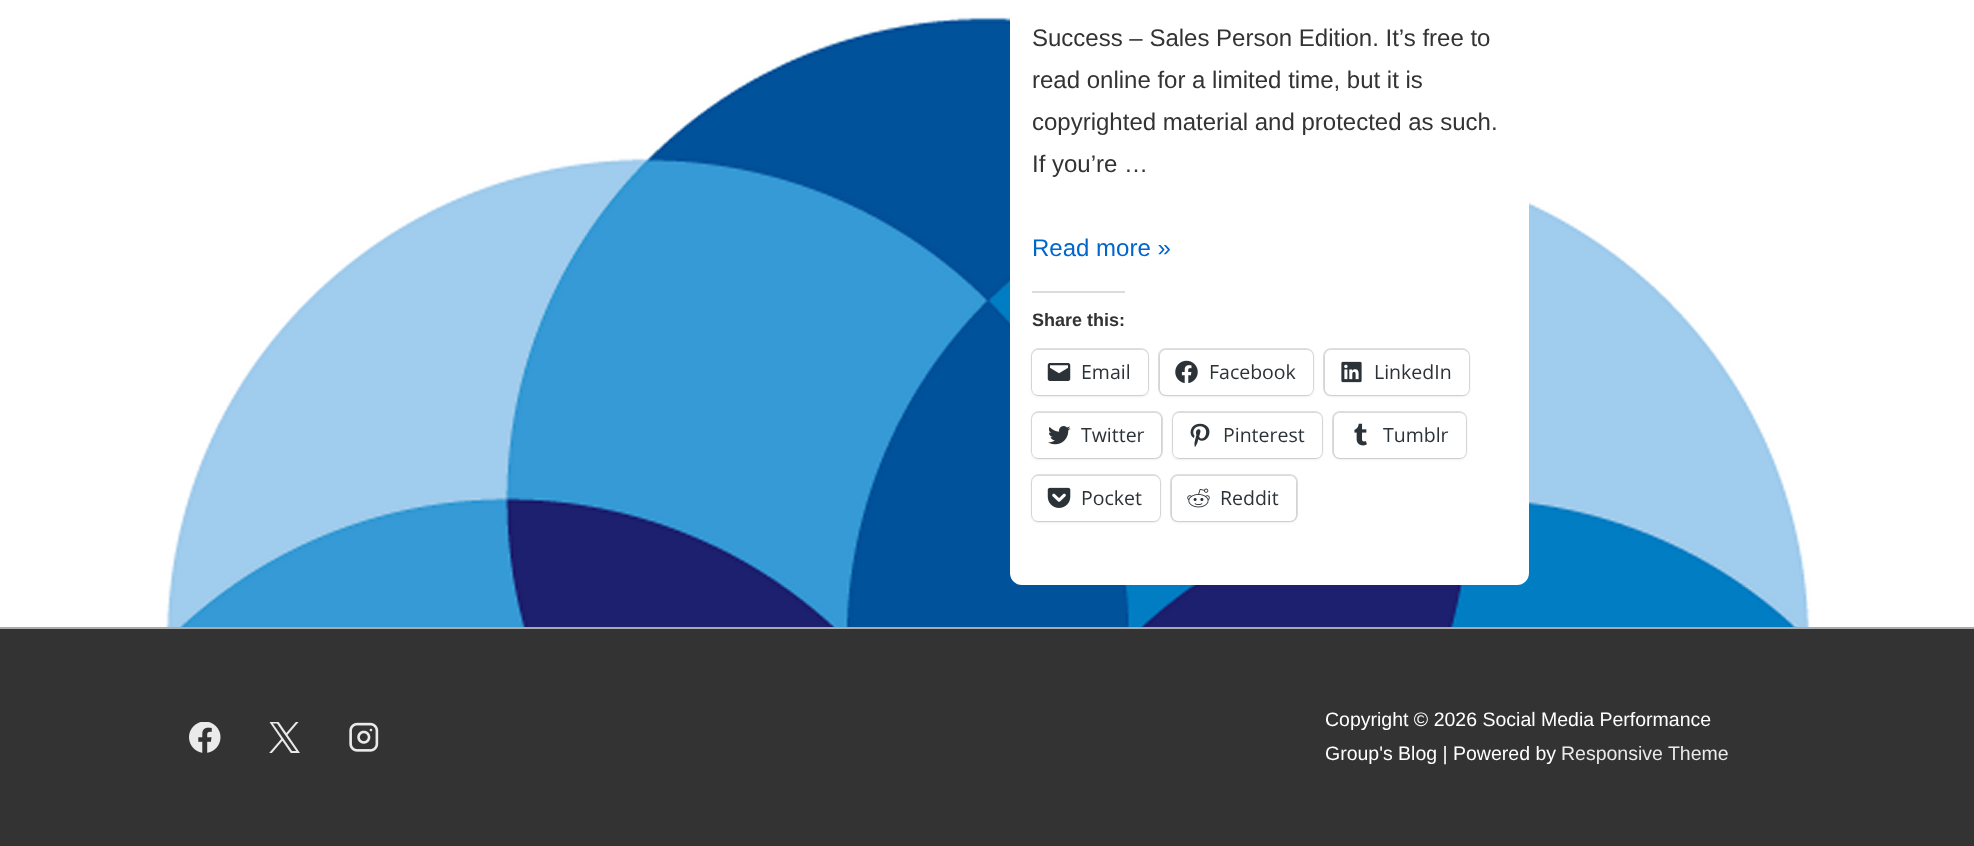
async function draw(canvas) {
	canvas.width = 1974;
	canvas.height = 846;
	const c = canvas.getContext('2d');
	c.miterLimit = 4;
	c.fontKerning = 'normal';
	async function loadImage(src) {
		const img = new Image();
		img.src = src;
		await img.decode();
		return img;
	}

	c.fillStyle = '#fff';
	c.fillRect(0, 0, 1974, 846);
	c.drawImage(await loadImage('img1.png'), 0, 0, 1974, 627);
	c.beginPath();
	c.roundRect(1010, -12, 519, 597, 12);
	c.fill();
	c.font = '24px Liberation Sans';
	c.fillStyle = '#333';
	for (const [text, x, y] of [
		['Success – Sales Person Edition. It’s free to', 1032, 46],
		['read online for a limited time, but it is', 1032, 88],
		['copyrighted material and protected as such.', 1032, 130],
		['If you’re …', 1032, 172],
	]) {
		c.fillText(text, x, y);
	}
	c.fillStyle = '#06c';
	c.fillText('Read more »', 1032, 256);
	c.fillStyle = '#dcdcde';
	c.fillRect(1032, 291, 93, 2);
	c.font = 'bold 18px Liberation Sans';
	c.fillStyle = '#333';
	c.fillText('Share this:', 1032, 326);
	c.beginPath();
	c.roundRect(1032, 349, 116, 46, 7);
	c.strokeStyle = '#e0e0e0';
	c.lineWidth = 2;
	c.stroke();
	c.fillStyle = '#0000001f';
	c.filter = 'blur(1.5px)';
	c.beginPath();
	c.roundRect(1032, 351, 116, 45, 6);
	c.fill();
	c.filter = 'none';
	c.fillStyle = '#fff';
	c.beginPath();
	c.roundRect(1032, 350, 116, 45, 6);
	c.fill();
	c.drawImage(await loadImage('img2.png'), 1047, 363, 24, 18);
	c.font = '19.5px Open Sans';
	c.fillStyle = '#2c3338';
	c.fillText('Email', 1081, 379);
	c.beginPath();
	c.roundRect(1159, 349, 154, 46, 7);
	c.stroke();
	c.fillStyle = '#0000001f';
	c.filter = 'blur(1.5px)';
	c.beginPath();
	c.roundRect(1160, 351, 153, 45, 6);
	c.fill();
	c.filter = 'none';
	c.fillStyle = '#fff';
	c.beginPath();
	c.roundRect(1160, 350, 153, 45, 6);
	c.fill();
	c.drawImage(await loadImage('img3.png'), 1175, 360, 23, 24);
	c.fillStyle = '#2c3338';
	c.fillText('Facebook', 1209, 379);
	c.beginPath();
	c.roundRect(1324, 349, 145, 46, 7);
	c.stroke();
	c.fillStyle = '#0000001f';
	c.filter = 'blur(1.5px)';
	c.beginPath();
	c.roundRect(1325, 351, 144, 45, 6);
	c.fill();
	c.filter = 'none';
	c.fillStyle = '#fff';
	c.beginPath();
	c.roundRect(1325, 350, 144, 45, 6);
	c.fill();
	c.drawImage(await loadImage('img4.png'), 1341, 361, 21, 22);
	c.fillStyle = '#2c3338';
	c.fillText('LinkedIn', 1374, 379);
	c.beginPath();
	c.roundRect(1032, 412, 130, 46, 7);
	c.stroke();
	c.fillStyle = '#0000001f';
	c.filter = 'blur(1.5px)';
	c.beginPath();
	c.roundRect(1032, 414, 129, 45, 6);
	c.fill();
	c.filter = 'none';
	c.fillStyle = '#fff';
	c.beginPath();
	c.roundRect(1032, 413, 129, 45, 6);
	c.fill();
	c.drawImage(await loadImage('img5.png'), 1048, 426, 23, 19);
	c.fillStyle = '#2c3338';
	c.fillText('Twitter', 1081, 442);
	c.beginPath();
	c.roundRect(1173, 412, 149, 46, 7);
	c.stroke();
	c.fillStyle = '#0000001f';
	c.filter = 'blur(1.5px)';
	c.beginPath();
	c.roundRect(1173, 414, 149, 45, 6);
	c.fill();
	c.filter = 'none';
	c.fillStyle = '#fff';
	c.beginPath();
	c.roundRect(1173, 413, 149, 45, 6);
	c.fill();
	c.drawImage(await loadImage('img6.png'), 1190, 423, 20, 24);
	c.fillStyle = '#2c3338';
	c.fillText('Pinterest', 1223, 442);
	c.beginPath();
	c.roundRect(1333, 412, 133, 46, 7);
	c.stroke();
	c.fillStyle = '#0000001f';
	c.filter = 'blur(1.5px)';
	c.beginPath();
	c.roundRect(1334, 414, 132, 45, 6);
	c.fill();
	c.filter = 'none';
	c.fillStyle = '#fff';
	c.beginPath();
	c.roundRect(1334, 413, 132, 45, 6);
	c.fill();
	c.drawImage(await loadImage('img7.png'), 1354, 423, 13, 23);
	c.fillStyle = '#2c3338';
	c.fillText('Tumblr', 1383, 442);
	c.beginPath();
	c.roundRect(1032, 475, 128, 46, 7);
	c.stroke();
	c.fillStyle = '#0000001f';
	c.filter = 'blur(1.5px)';
	c.beginPath();
	c.roundRect(1032, 477, 128, 45, 6);
	c.fill();
	c.filter = 'none';
	c.fillStyle = '#fff';
	c.beginPath();
	c.roundRect(1032, 476, 128, 45, 6);
	c.fill();
	c.drawImage(await loadImage('img8.png'), 1047, 487, 24, 21);
	c.fillStyle = '#2c3338';
	c.fillText('Pocket', 1081, 505);
	c.beginPath();
	c.roundRect(1171, 475, 126, 46, 7);
	c.stroke();
	c.fillStyle = '#0000001f';
	c.filter = 'blur(1.5px)';
	c.beginPath();
	c.roundRect(1172, 477, 124, 45, 6);
	c.fill();
	c.filter = 'none';
	c.fillStyle = '#fff';
	c.beginPath();
	c.roundRect(1172, 476, 124, 45, 6);
	c.fill();
	c.drawImage(await loadImage('img9.png'), 1187, 488, 23, 20);
	c.fillStyle = '#2c3338';
	c.fillText('Reddit', 1220, 505);
	c.fillStyle = '#333';
	c.fillRect(0, 629, 1974, 217);
	c.fillStyle = '#aaa';
	c.fillRect(0, 627, 1974, 2);
	c.drawImage(await loadImage('img10.png'), 189, 722, 32, 31);
	c.drawImage(await loadImage('img11.png'), 269, 722, 31, 31);
	c.drawImage(await loadImage('img12.png'), 349, 722, 30, 30);
	c.font = '19.5px Liberation Sans';
	c.fillStyle = '#fff';
	c.fillText('Copyright © 2026 Social Media Performance', 1325, 726);
	c.fillText('Group\'s Blog | Powered by', 1325, 760);
	c.fillStyle = '#eaeaea';
	c.fillText('Responsive Theme', 1561, 760);
}

draw(document.querySelector('canvas'));
